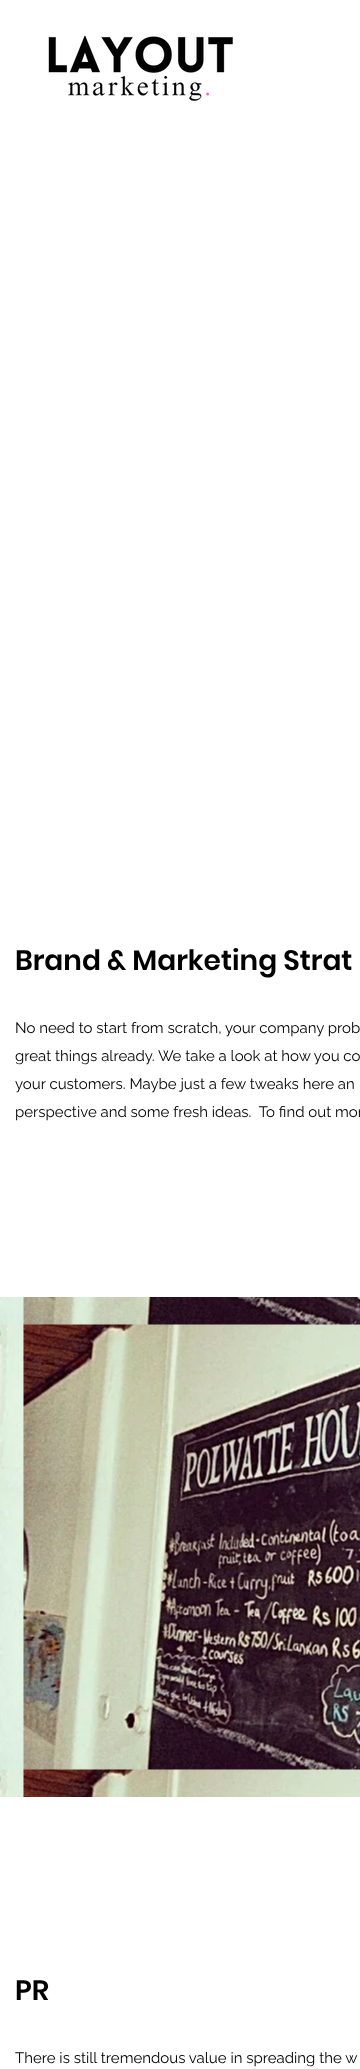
async function draw(canvas) {
	canvas.width = 360;
	canvas.height = 2069;
	const c = canvas.getContext('2d');
	c.miterLimit = 4;
	c.fontKerning = 'normal';
	async function loadImage(src) {
		const img = new Image();
		img.src = src;
		await img.decode();
		return img;
	}

	c.fillStyle = '#fff';
	c.fillRect(0, 0, 360, 2069);
	c.drawImage(await loadImage('img1.png'), 48, 35, 185, 66);
	c.font = '600 28px Poppins';
	c.fillStyle = '#000';
	c.fillText('Brand & Marketing Strat', 15, 970);
	c.font = '15px Raleway';
	for (const [text, x, y] of [
		['No need to start from scratch, your company prob', 15, 1033],
		['great things already. We take a look at how you co', 15, 1061],
		['your customers. Maybe just a few tweaks here an', 15, 1089],
		['perspective and some fresh ideas.  To find out mor', 15, 1117],
	]) {
		c.fillText(text, x, y);
	}
	c.drawImage(await loadImage('img2.png'), 0, 1297, 360, 500);
	c.font = '600 28px Poppins';
	c.fillText('PR', 15, 2000);
	c.font = '15px Raleway';
	c.fillText('There is still tremendous value in spreading the w', 15, 2063);
}

draw(document.querySelector('canvas'));
